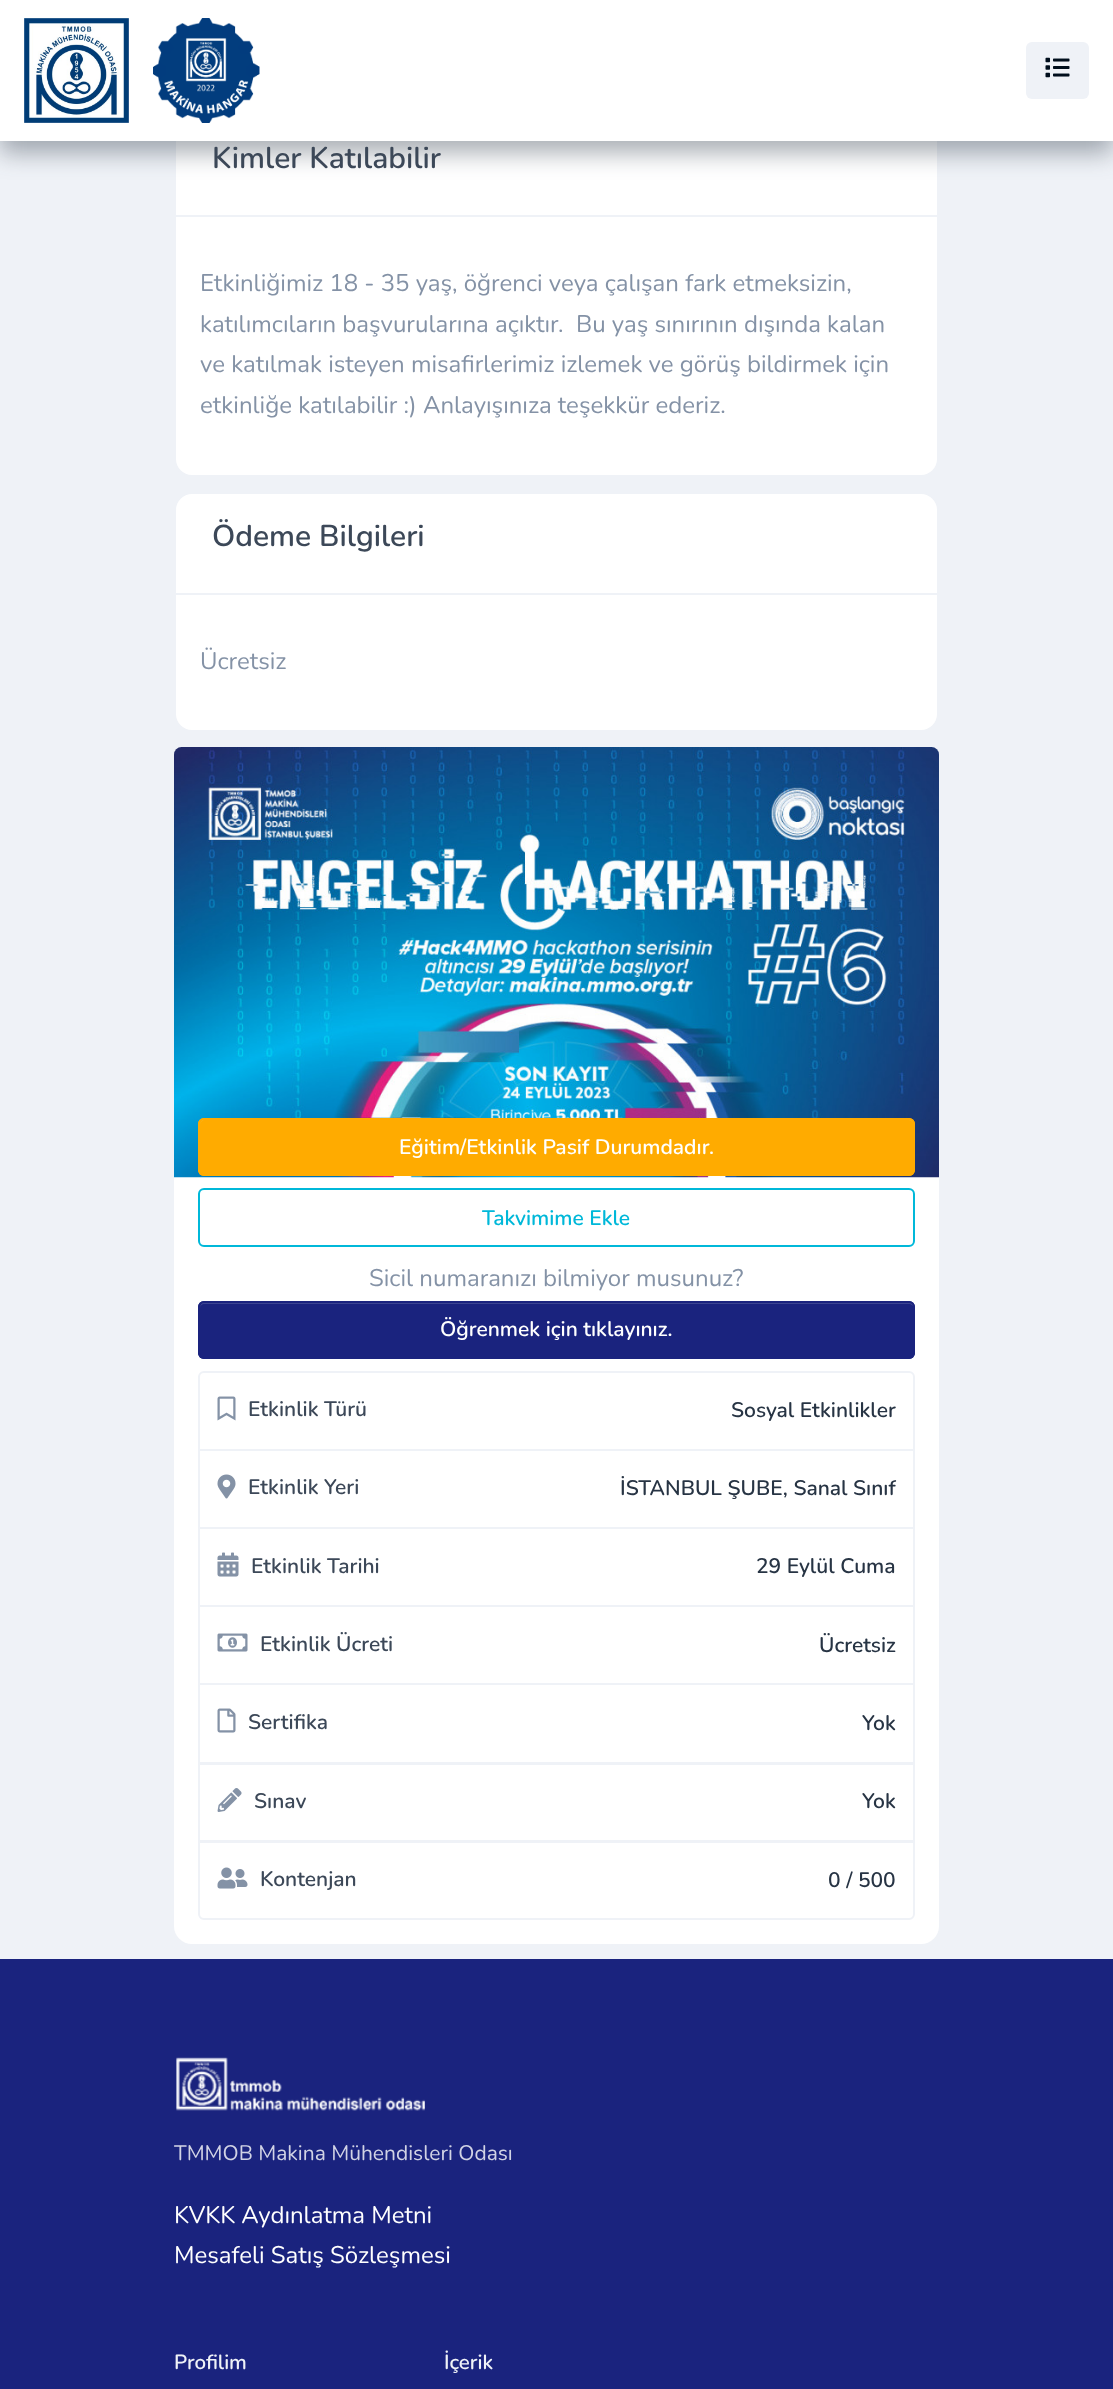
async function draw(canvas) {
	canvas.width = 1113;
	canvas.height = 2389;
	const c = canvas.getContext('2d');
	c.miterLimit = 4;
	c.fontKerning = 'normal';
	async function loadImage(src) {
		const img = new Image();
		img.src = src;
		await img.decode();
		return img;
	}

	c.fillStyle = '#eff2f7';
	c.fillRect(0, 0, 1113, 2389);
	c.fillStyle = '#fff';
	c.beginPath();
	c.roundRect(175, 115, 763, 361, 17);
	c.fill();
	c.strokeStyle = '#eff2f7';
	c.lineWidth = 2;
	c.stroke();
	c.fillStyle = '#27344466';
	c.filter = 'blur(12px)';
	c.beginPath();
	c.rect(0, 12, 1113, 141);
	c.fill();
	c.filter = 'none';
	c.fillStyle = '#fff';
	c.fillRect(0, 0, 1113, 141);
	c.drawImage(await loadImage('img1.png'), 24, 18, 105, 105);
	c.drawImage(await loadImage('img2.png'), 153, 18, 107, 105);
	c.fillStyle = '#eff2f7';
	c.beginPath();
	c.roundRect(1026, 42, 63, 57, 6);
	c.fill();
	c.drawImage(await loadImage('img3.png'), 1045, 57, 25, 21);
	c.fillRect(176, 215, 762, 2);
	c.font = '600 30px Nunito';
	c.fillStyle = '#3c4858';
	c.fillText('Kimler Katılabilir', 212, 168);
	c.font = '24px Nunito';
	c.fillStyle = '#8492a6';
	for (const [text, x, y] of [
		['Etkinliğimiz 18 - 35 yaş, öğrenci veya çalışan fark etmeksizin,', 200, 291],
		['katılımcıların başvurularına açıktır.  Bu yaş sınırının dışında kalan', 200, 332],
		['ve katılmak isteyen misafirlerimiz izlemek ve görüş bildirmek için', 200, 372],
		['etkinliğe katılabilir :) Anlayışınıza teşekkür ederiz.', 200, 413],
	]) {
		c.fillText(text, x, y);
	}
	c.fillStyle = '#fff';
	c.beginPath();
	c.roundRect(175, 493, 763, 238, 17);
	c.fill();
	c.stroke();
	c.fillStyle = '#eff2f7';
	c.fillRect(176, 593, 762, 2);
	c.font = '600 30px Nunito';
	c.fillStyle = '#3c4858';
	c.fillText('Ödeme Bilgileri', 212, 546);
	c.font = '24px Nunito';
	c.fillStyle = '#8492a6';
	c.fillText('Ücretsiz', 200, 669);
	c.fillStyle = '#fff';
	c.beginPath();
	c.roundRect(174, 747, 765, 1197, 18);
	c.fill();
	c.drawImage(await loadImage('img4.png'), 174, 747, 765, 431);
	c.fillStyle = '#ffab00';
	c.beginPath();
	c.roundRect(198, 1118, 717, 58, 6);
	c.fill();
	c.fillStyle = '#ffb826';
	c.beginPath();
	c.moveTo(204, 1120);
	c.lineTo(909, 1120);
	c.bezierCurveTo(911, 1120, 914, 1123, 914, 1125);
	c.bezierCurveTo(914, 1122, 912, 1119, 909, 1119);
	c.lineTo(205, 1119);
	c.bezierCurveTo(202, 1119, 200, 1122, 200, 1125);
	c.bezierCurveTo(200, 1123, 202, 1120, 204, 1120);
	c.closePath();
	c.fill();
	c.beginPath();
	c.roundRect(199, 1119, 715, 56, 5);
	c.strokeStyle = '#ffab00';
	c.stroke();
	c.font = '600 21px Nunito';
	c.fillStyle = '#fff';
	c.fillText('Eğitim/Etkinlik Pasif Durumdadır.', 399, 1154);
	c.beginPath();
	c.roundRect(199, 1189, 715, 57, 5);
	c.strokeStyle = '#00b8d9';
	c.stroke();
	c.fillStyle = '#00b8d9';
	c.fillText('Takvimime Ekle', 482, 1225);
	c.font = '24px Nunito';
	c.fillStyle = '#8492a6';
	c.fillText('Sicil numaranızı bilmiyor musunuz?', 369, 1286);
	c.fillStyle = '#1a237e';
	c.beginPath();
	c.roundRect(198, 1301, 717, 58, 6);
	c.fill();
	c.fillStyle = '#3c4491';
	c.beginPath();
	c.moveTo(204, 1304);
	c.lineTo(909, 1304);
	c.bezierCurveTo(911, 1304, 914, 1306, 914, 1308);
	c.bezierCurveTo(914, 1305, 912, 1302, 909, 1302);
	c.lineTo(205, 1302);
	c.bezierCurveTo(202, 1302, 200, 1305, 200, 1308);
	c.bezierCurveTo(200, 1306, 202, 1304, 204, 1304);
	c.closePath();
	c.fill();
	c.beginPath();
	c.roundRect(199, 1302, 715, 56, 5);
	c.strokeStyle = '#1a237e';
	c.stroke();
	c.font = '600 21px Nunito';
	c.fillStyle = '#fff';
	c.fillText('Öğrenmek için tıklayınız.', 440, 1336);
	c.beginPath();
	c.roundRect(199, 1372, 715, 78, [5, 5, 0, 0]);
	c.strokeStyle = '#eff2f7';
	c.stroke();
	c.drawImage(await loadImage('img5.png'), 217, 1396, 19, 25);
	c.fillStyle = '#3c4858';
	c.fillText('Etkinlik Türü', 248, 1416);
	c.fillStyle = '#273444';
	c.fillText('Sosyal Etkinlikler', 731, 1417);
	c.strokeRect(199, 1450, 715, 78);
	c.drawImage(await loadImage('img6.png'), 217, 1474, 19, 25);
	c.fillStyle = '#3c4858';
	c.fillText('Etkinlik Yeri', 248, 1494);
	c.fillStyle = '#273444';
	c.fillText('İSTANBUL ŞUBE, Sanal Sınıf', 620, 1495);
	c.strokeRect(199, 1528, 715, 78);
	c.drawImage(await loadImage('img7.png'), 217, 1552, 22, 25);
	c.fillStyle = '#3c4858';
	c.fillText('Etkinlik Tarihi', 251, 1573);
	c.fillStyle = '#273444';
	c.fillText('29 Eylül Cuma', 756, 1573);
	c.strokeRect(199, 1606, 715, 78);
	c.drawImage(await loadImage('img8.png'), 217, 1633, 31, 19);
	c.fillStyle = '#3c4858';
	c.fillText('Etkinlik Ücreti', 260, 1651);
	c.fillStyle = '#273444';
	c.fillText('Ücretsiz', 819, 1652);
	c.strokeRect(199, 1684, 715, 79);
	c.drawImage(await loadImage('img9.png'), 217, 1708, 19, 25);
	c.fillStyle = '#3c4858';
	c.fillText('Sertifika', 248, 1729);
	c.fillStyle = '#273444';
	c.fillText('Yok', 862, 1730);
	c.strokeRect(199, 1764, 715, 77);
	c.drawImage(await loadImage('img10.png'), 217, 1788, 25, 24);
	c.fillStyle = '#3c4858';
	c.fillText('Sınav', 254, 1808);
	c.fillStyle = '#273444';
	c.fillText('Yok', 862, 1808);
	c.fillStyle = '#fff';
	c.beginPath();
	c.roundRect(199, 1842, 715, 77, [0, 0, 5, 5]);
	c.fill();
	c.stroke();
	c.drawImage(await loadImage('img11.png'), 217, 1867, 31, 22);
	c.fillStyle = '#3c4858';
	c.fillText('Kontenjan', 260, 1886);
	c.fillStyle = '#273444';
	c.fillText('0 / 500', 828, 1887);
	c.fillStyle = '#1a237e';
	c.fillRect(0, 1959, 1113, 430);
	c.drawImage(await loadImage('img12.png'), 176, 2057, 249, 54);
	c.font = '21px Nunito';
	c.fillStyle = '#d1d3e5';
	c.fillText('TMMOB Makina Mühendisleri Odası', 174, 2160);
	c.font = '24px Nunito';
	c.fillStyle = '#fff';
	c.fillText('KVKK Aydınlatma Metni', 174, 2223);
	c.fillText('Mesafeli Satış Sözleşmesi', 174, 2263);
	c.font = '600 20.5px Nunito';
	c.fillStyle = '#eff2f7';
	c.fillText('Profilim', 174, 2369);
	c.fillText('İçerik', 444, 2369);
}

draw(document.querySelector('canvas'));
